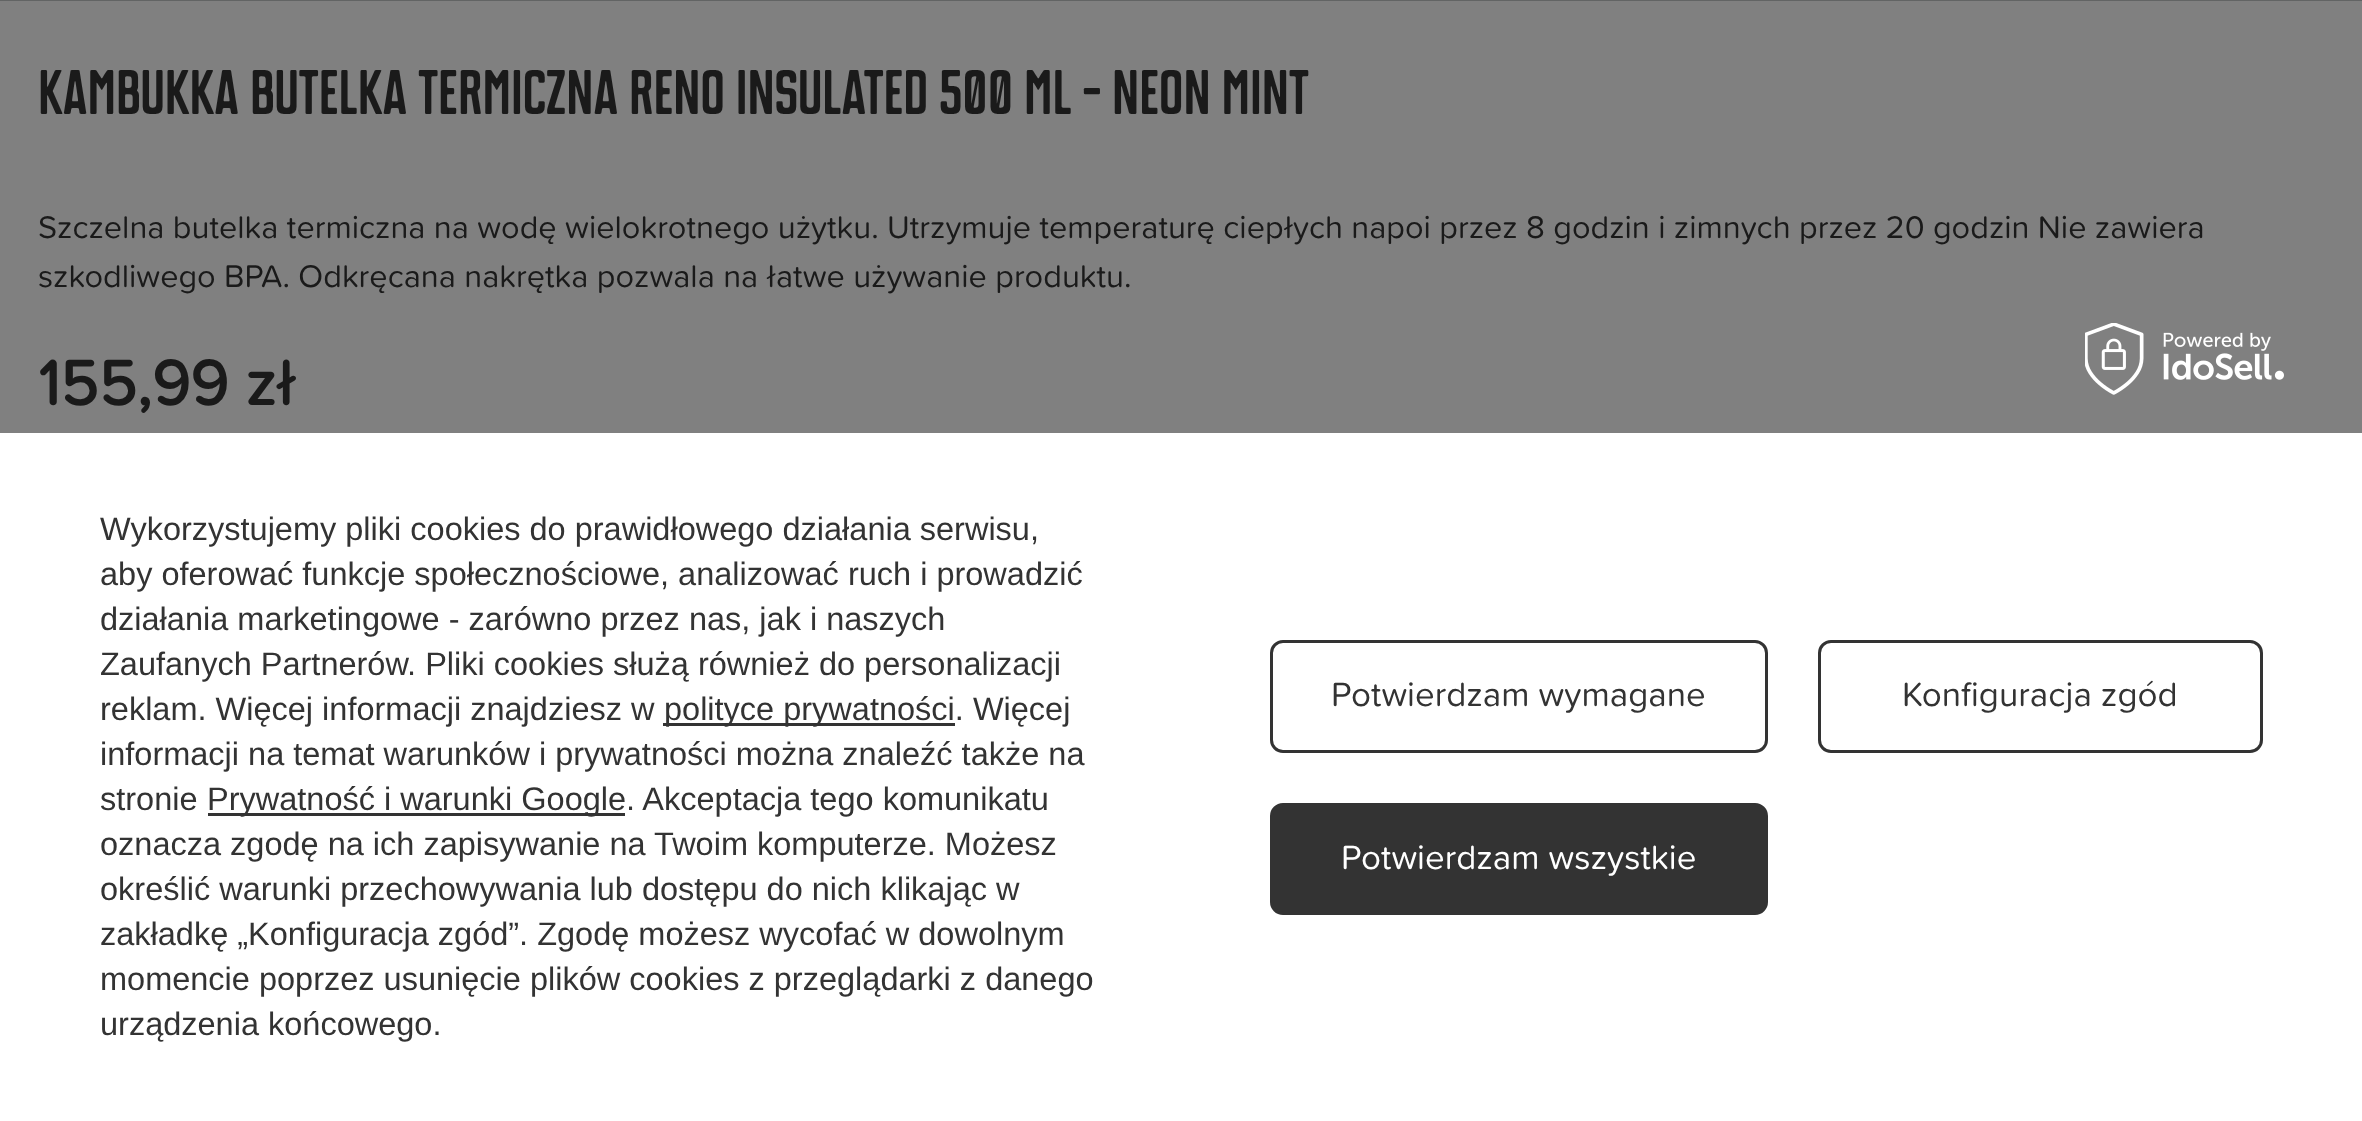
async function draw(canvas) {
	canvas.width = 2362;
	canvas.height = 1121;
	const c = canvas.getContext('2d');
	c.miterLimit = 4;
	c.fontKerning = 'normal';
	async function loadImage(src) {
		const img = new Image();
		img.src = src;
		await img.decode();
		return img;
	}

	c.fillStyle = '#808080';
	c.fillRect(0, 0, 2362, 1121);
	c.fillStyle = '#626464';
	c.fillRect(0, 0, 2362, 1);
	c.font = 'bold 55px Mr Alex';
	c.fillStyle = '#1a1a1a';
	c.fillText('Kambukka butelka termiczna Reno Insulated 500 ml - Neon Mint', 38, 114);
	c.font = '32.5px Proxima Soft';
	c.fillText('Szczelna butelka termiczna na wodę wielokrotnego użytku. Utrzymuje temperaturę ciepłych napoi przez 8 godzin i zimnych przez 20 godzin Nie zawiera', 38, 238);
	c.fillText('szkodliwego BPA. Odkręcana nakrętka pozwala na łatwe używanie produktu.', 38, 287);
	c.font = 'bold 65px Proxima Soft';
	c.fillText('155,99 zł', 38, 405);
	c.fillStyle = '#fff';
	c.fillRect(0, 433, 2362, 688);
	c.drawImage(await loadImage('img1.png'), 2085, 323, 199, 72);
	c.font = '32.5px Liberation Sans';
	c.fillStyle = '#333';
	for (const [text, x, y] of [
		['Wykorzystujemy pliki cookies do prawidłowego działania serwisu,', 100, 540],
		['aby oferować funkcje społecznościowe, analizować ruch i prowadzić', 100, 585],
		['działania marketingowe - zarówno przez nas, jak i naszych', 100, 630],
		['Zaufanych Partnerów. Pliki cookies służą również do personalizacji', 100, 675],
		['reklam. Więcej informacji znajdziesz w', 100, 720],
	]) {
		c.fillText(text, x, y);
	}
	c.fillRect(663, 723, 292, 3);
	for (const [text, x, y] of [
		['polityce prywatności. Więcej', 664, 720],
		['informacji na temat warunków i prywatności można znaleźć także na', 100, 765],
		['stronie', 100, 810],
	]) {
		c.fillText(text, x, y);
	}
	c.fillRect(208, 813, 417, 3);
	for (const [text, x, y] of [
		['Prywatność i warunki Google. Akceptacja tego komunikatu', 207, 810],
		['oznacza zgodę na ich zapisywanie na Twoim komputerze. Możesz', 100, 855],
		['określić warunki przechowywania lub dostępu do nich klikając w', 100, 900],
		['zakładkę „Konfiguracja zgód”. Zgodę możesz wycofać w dowolnym', 100, 945],
		['momencie poprzez usunięcie plików cookies z przeglądarki z danego', 100, 990],
		['urządzenia końcowego.', 100, 1035],
	]) {
		c.fillText(text, x, y);
	}
	c.beginPath();
	c.roundRect(1271.5, 641.5, 495, 110, 11.5);
	c.strokeStyle = '#333';
	c.lineWidth = 3;
	c.stroke();
	c.font = '35px "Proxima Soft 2"';
	c.fillText('Potwierdzam wymagane', 1331, 706);
	c.beginPath();
	c.roundRect(1819.5, 641.5, 442, 110, 11.5);
	c.stroke();
	c.fillText('Konfiguracja zgód', 1902, 706);
	c.beginPath();
	c.roundRect(1271.5, 804.5, 495, 109, 11.5);
	c.fill();
	c.stroke();
	c.fillStyle = '#fff';
	c.fillText('Potwierdzam wszystkie', 1341, 869);
}

draw(document.querySelector('canvas'));
